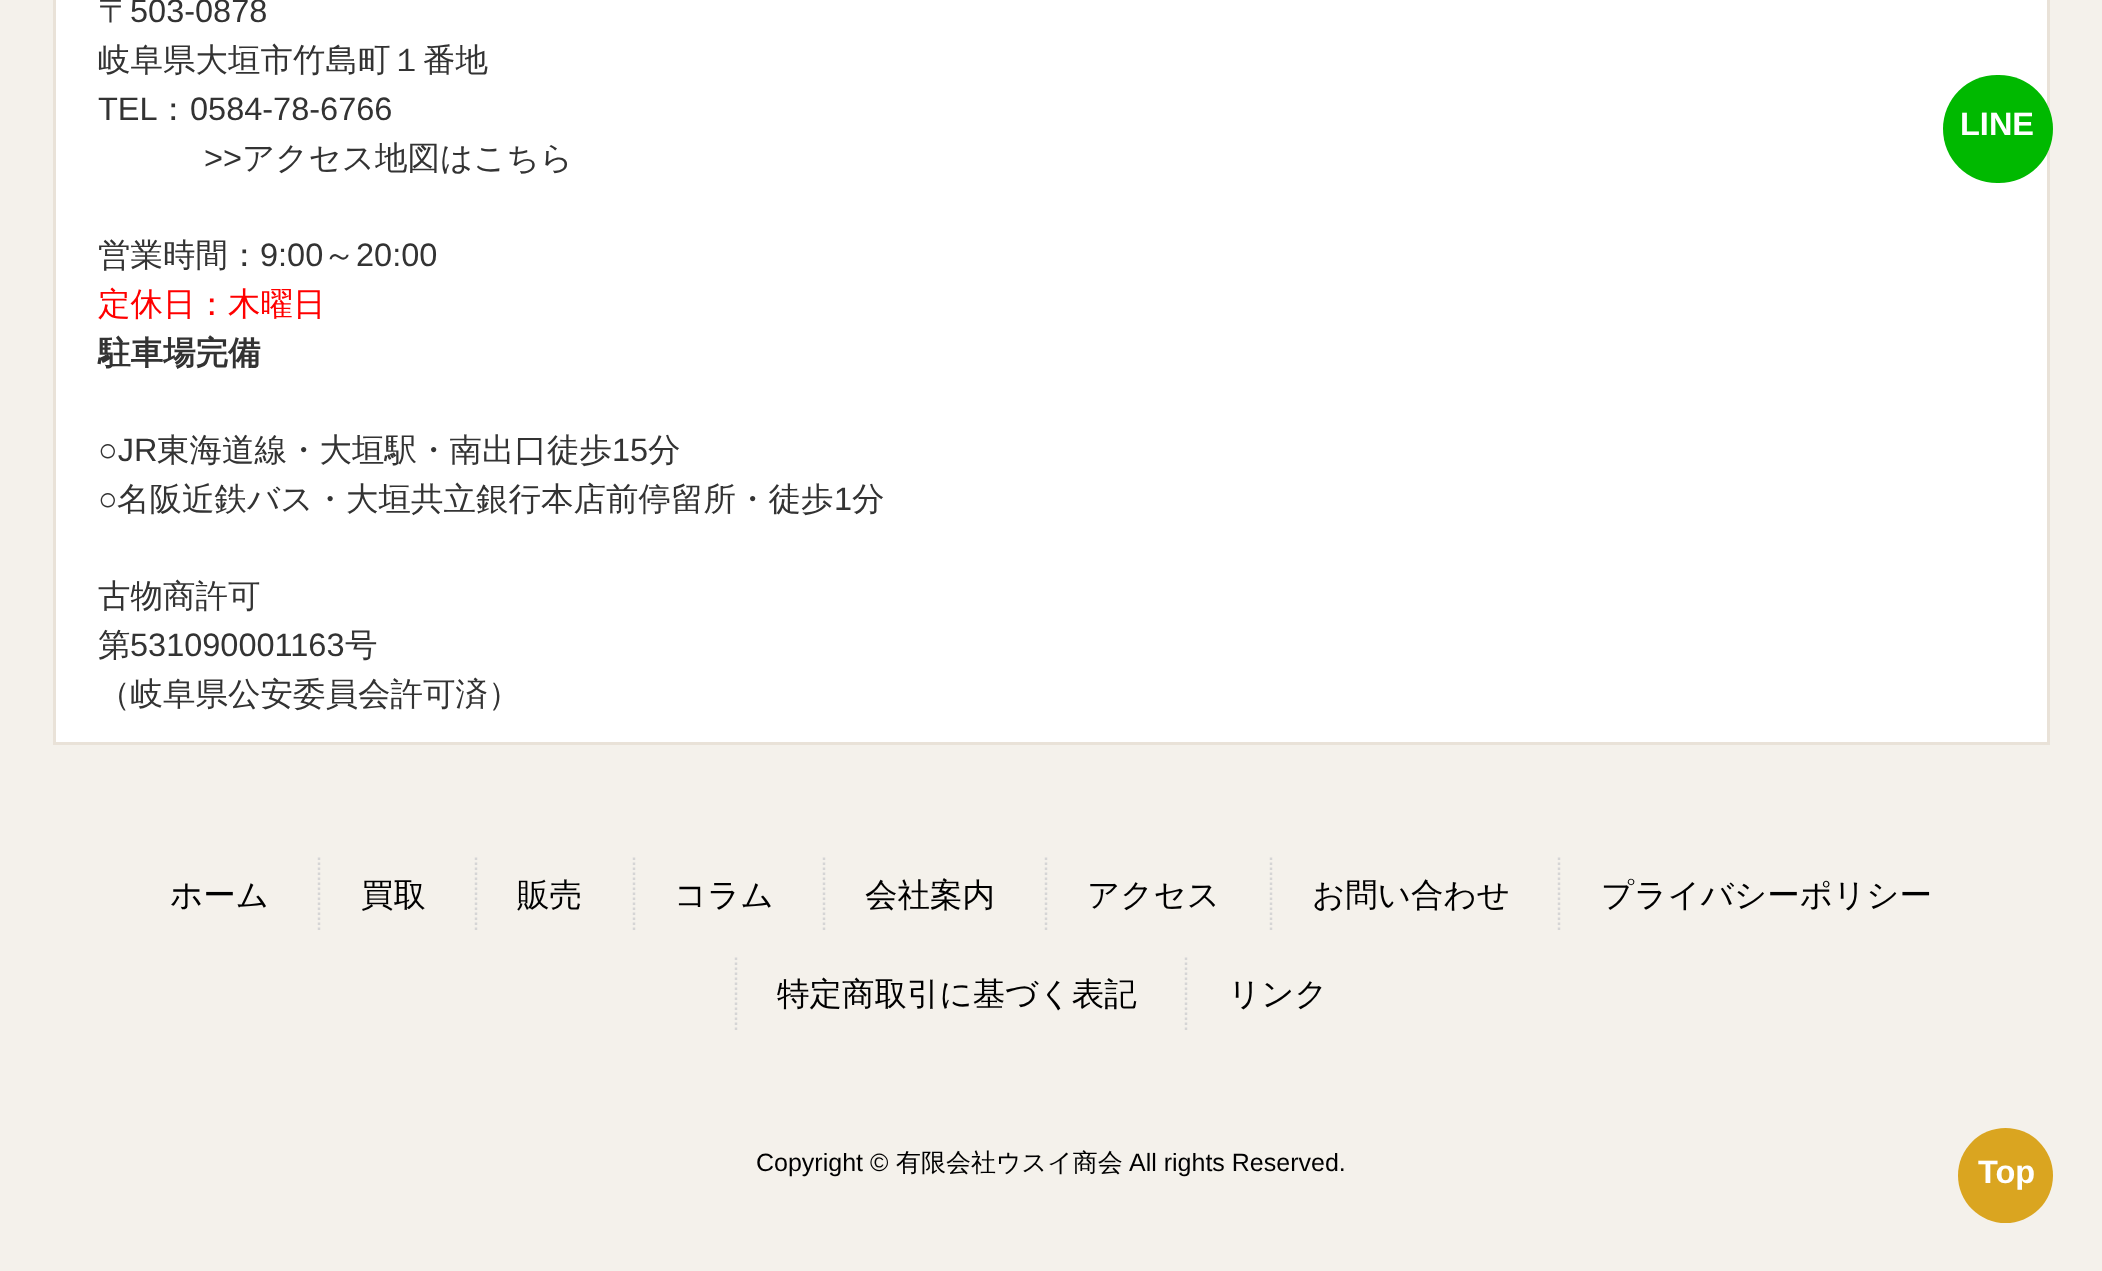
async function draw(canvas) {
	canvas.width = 2102;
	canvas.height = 1271;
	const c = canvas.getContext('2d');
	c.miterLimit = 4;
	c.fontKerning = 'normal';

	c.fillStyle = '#f4f1eb';
	c.fillRect(0, 0, 2102, 1271);
	c.fillStyle = '#fff';
	c.beginPath();
	c.rect(54.5, -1.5, 1994, 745);
	c.fill();
	c.strokeStyle = '#e9e2d8';
	c.lineWidth = 3;
	c.stroke();
	c.font = '500 32.5px WenQuanYi Zen Hei';
	c.fillStyle = '#333';
	c.fillText('〒', 98, 22);
	c.font = '32.5px Liberation Sans';
	c.fillText('503-0878', 130, 22);
	c.font = '500 32.5px WenQuanYi Zen Hei';
	c.fillText('岐阜県大垣市竹島町１番地', 98, 71);
	c.font = '32.5px Liberation Sans';
	c.fillText('TEL', 98, 120);
	c.font = '500 32.5px WenQuanYi Zen Hei';
	c.fillText('：', 157, 120);
	c.font = '32.5px Liberation Sans';
	c.fillText('0584-78-6766', 190, 120);
	c.fillText('>>', 204, 169);
	c.font = '500 32.5px WenQuanYi Zen Hei';
	c.fillText('アクセス地図はこちら', 242, 169);
	c.fillText('営業時間：', 98, 266);
	c.font = '32.5px Liberation Sans';
	c.fillText('9:00', 260, 266);
	c.font = '500 32.5px WenQuanYi Zen Hei';
	c.fillText('～', 323, 266);
	c.font = '32.5px Liberation Sans';
	c.fillText('20:00', 356, 266);
	c.font = '500 32.5px WenQuanYi Zen Hei';
	c.fillStyle = '#f00';
	c.fillText('定休日：木曜日', 98, 315);
	c.font = 'bold 32.5px WenQuanYi Zen Hei';
	c.fillStyle = '#333';
	c.fillText('駐車場完備', 98, 364);
	c.font = '32.5px Liberation Sans';
	c.fillText('○JR', 98, 461);
	c.font = '500 32.5px WenQuanYi Zen Hei';
	c.fillText('東海道線・大垣駅・南出口徒歩', 157, 461);
	c.font = '32.5px Liberation Sans';
	c.fillText('15', 612, 461);
	c.font = '500 32.5px WenQuanYi Zen Hei';
	c.fillText('分', 648, 461);
	c.font = '32.5px Liberation Sans';
	c.fillText('○', 98, 510);
	c.font = '500 32.5px WenQuanYi Zen Hei';
	c.fillText('名阪近鉄バス・大垣共立銀行本店前停留所・徒歩', 117, 510);
	c.font = '32.5px Liberation Sans';
	c.fillText('1', 834, 510);
	c.font = '500 32.5px WenQuanYi Zen Hei';
	for (const [text, x, y] of [
		['分', 852, 510],
		['古物商許可', 98, 607],
		['第', 98, 656],
	]) {
		c.fillText(text, x, y);
	}
	c.font = '32.5px Liberation Sans';
	c.fillText('531090001163', 130, 656);
	c.font = '500 32.5px WenQuanYi Zen Hei';
	c.fillText('号', 345, 656);
	c.fillText('（岐阜県公安委員会許可済）', 98, 705);
	c.fillStyle = '#00b900';
	c.beginPath();
	c.roundRect(1943, 75, 110, 108, 54);
	c.fill();
	c.font = 'bold 32.5px Liberation Sans';
	c.fillStyle = '#fff';
	c.fillText('LINE', 1960, 135);
	c.font = '500 32.5px WenQuanYi Zen Hei';
	c.fillStyle = '#000';
	c.fillText('ホーム', 170, 906);
	c.beginPath();
	c.moveTo(319, 857.5);
	c.lineTo(319, 932.5);
	c.strokeStyle = '#d5d5d5';
	c.lineWidth = 2.5;
	c.setLineDash([2.5, 2.5]);
	c.stroke();
	c.fillText('買取', 361, 906);
	c.beginPath();
	c.moveTo(476, 857.5);
	c.lineTo(476, 932.5);
	c.stroke();
	c.fillText('販売', 517, 906);
	c.beginPath();
	c.moveTo(634, 857.5);
	c.lineTo(634, 932.5);
	c.stroke();
	c.fillText('コラム', 674, 906);
	c.beginPath();
	c.moveTo(824, 857.5);
	c.lineTo(824, 932.5);
	c.stroke();
	c.fillText('会社案内', 865, 906);
	c.beginPath();
	c.moveTo(1046, 857.5);
	c.lineTo(1046, 932.5);
	c.stroke();
	c.fillText('アクセス', 1087, 906);
	c.beginPath();
	c.moveTo(1271, 857.5);
	c.lineTo(1271, 932.5);
	c.stroke();
	c.fillText('お問い合わせ', 1312, 906);
	c.beginPath();
	c.moveTo(1559, 857.5);
	c.lineTo(1559, 932.5);
	c.stroke();
	c.fillText('プライバシーポリシー', 1601, 906);
	c.beginPath();
	c.moveTo(736, 957.5);
	c.lineTo(736, 1030);
	c.stroke();
	c.fillText('特定商取引に基づく表記', 777, 1005);
	c.beginPath();
	c.moveTo(1186, 957.5);
	c.lineTo(1186, 1030);
	c.stroke();
	c.fillText('リンク', 1228, 1005);
	c.font = '25px Liberation Sans';
	c.fillText('Copyright ©', 756, 1171);
	c.font = '500 25px WenQuanYi Zen Hei';
	c.fillText('有限会社ウスイ商会', 896, 1171);
	c.font = '25px Liberation Sans';
	c.fillText('All rights Reserved.', 1129, 1171);
	c.fillStyle = '#daa520';
	c.beginPath();
	c.arc(2005.5, 1175.5, 47.5, 0, 2 * Math.PI);
	c.fill();
	c.font = 'bold 32.5px Liberation Sans';
	c.fillStyle = '#fff';
	c.fillText('Top', 1978, 1183);
}

draw(document.querySelector('canvas'));
